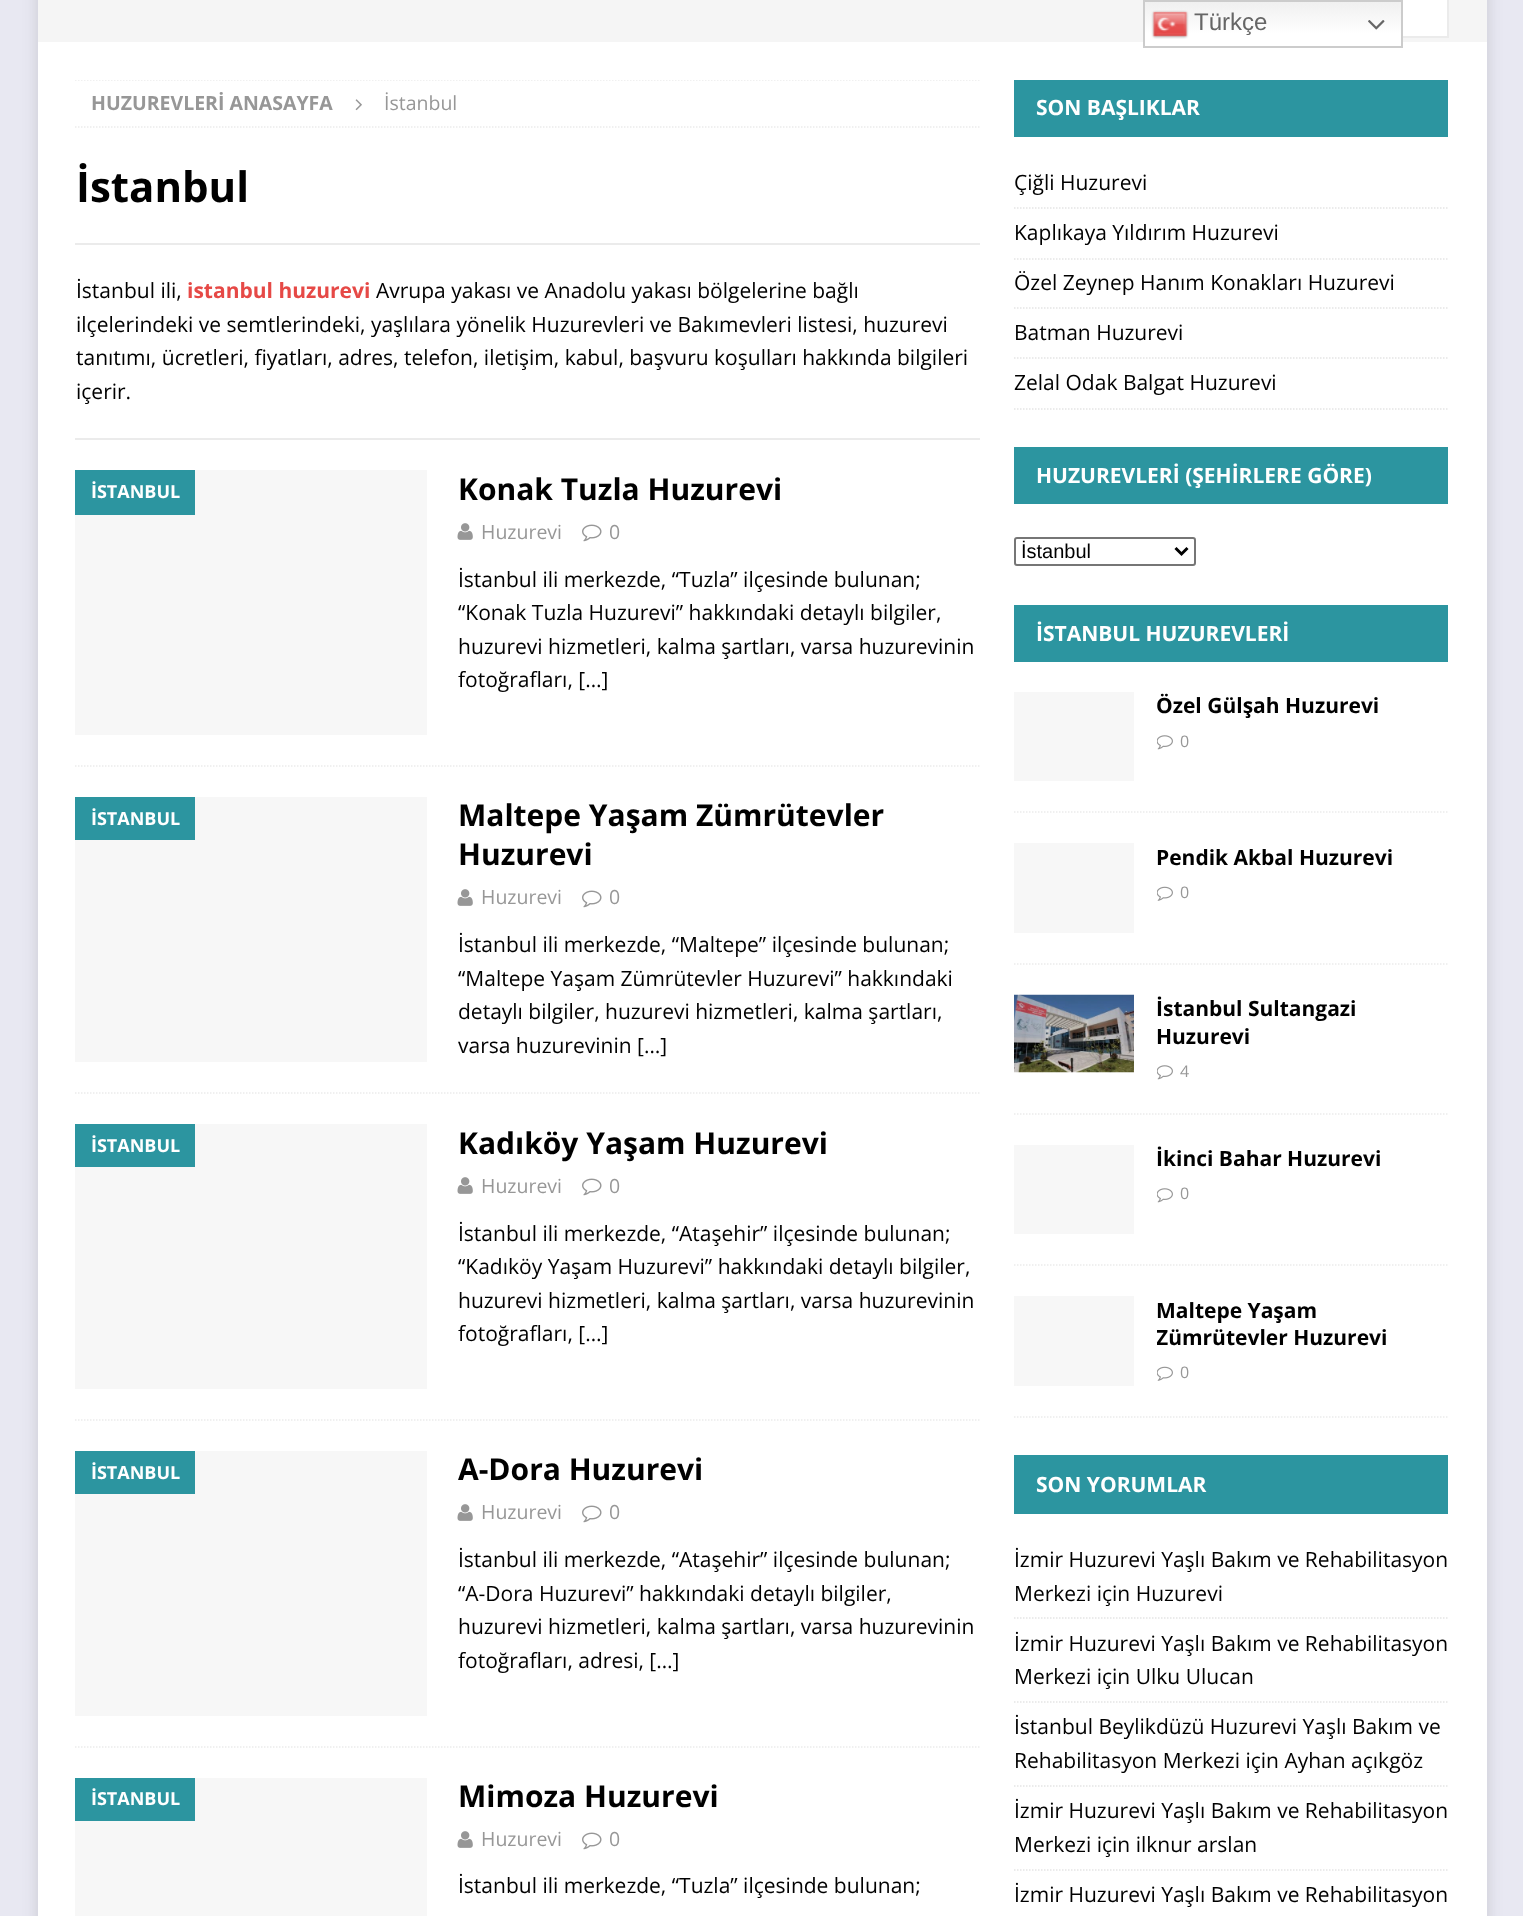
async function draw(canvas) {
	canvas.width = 1523;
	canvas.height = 1916;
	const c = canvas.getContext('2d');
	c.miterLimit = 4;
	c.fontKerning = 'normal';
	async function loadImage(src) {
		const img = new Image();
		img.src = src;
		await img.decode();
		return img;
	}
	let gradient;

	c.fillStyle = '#e8e8f2';
	c.fillRect(0, 0, 1523, 1916);
	c.fillStyle = '#3232322b';
	c.filter = 'blur(7.5px)';
	c.beginPath();
	c.rect(38, -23, 1449, 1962);
	c.fill();
	c.filter = 'none';
	c.fillStyle = '#f5f5f5';
	c.fillRect(38, 0, 1449, 42);
	c.fillStyle = '#fff';
	c.fillRect(1403, 0, 44, 36);
	c.strokeStyle = '#ebebeb';
	c.lineWidth = 2;
	c.strokeRect(1150, -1, 298, 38);
	gradient = c.createLinearGradient(1273, 0, 1273, 48);
	gradient.addColorStop(0, '#efefef');
	gradient.addColorStop(0.7, '#fff');
	c.fillStyle = gradient;
	c.fillRect(1145, 2, 256, 40);
	c.fillStyle = '#fff';
	c.fillRect(38, 42, 1449, 1874);
	c.strokeStyle = '#ccc';
	c.strokeRect(1144, 1, 258, 46);
	c.drawImage(await loadImage('img1.png'), 1151, 10, 38, 29);
	c.font = '24px Liberation Sans';
	c.fillStyle = '#666';
	c.fillText('Türkçe', 1194, 30);
	c.drawImage(await loadImage('img2.png'), 1368, 20, 17, 10);
	c.save();
	c.beginPath();
	c.rect(75, 80, 905, 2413);
	c.clip();
	c.beginPath();
	c.moveTo(75, 80);
	c.lineTo(979.5, 80);
	c.strokeStyle = '#ebebeb';
	c.lineWidth = 1.5;
	c.setLineDash([1.5, 1.5]);
	c.stroke();
	c.restore();
	c.beginPath();
	c.moveTo(75, 127);
	c.lineTo(979.5, 127);
	c.strokeStyle = '#ebebeb';
	c.lineWidth = 1.5;
	c.setLineDash([1.5, 1.5]);
	c.stroke();
	c.font = 'bold 19.5px Open Sans';
	c.fillStyle = '#979797';
	c.fillText('HUZUREVLERİ ANASAYFA', 91, 110);
	c.drawImage(await loadImage('img3.png'), 355, 99, 7, 12);
	c.font = '19.5px Open Sans';
	c.fillText('İstanbul', 384, 110);
	c.font = 'bold 42px Open Sans';
	c.fillStyle = '#000';
	c.fillText('İstanbul', 76, 202);
	c.fillStyle = '#ebebeb';
	c.fillRect(75, 243, 905, 2);
	c.fillRect(75, 438, 905, 2);
	c.font = '21px Open Sans';
	c.fillStyle = '#000';
	c.fillText('İstanbul ili,', 76, 298);
	c.font = 'bold 21px Open Sans';
	c.fillStyle = '#e64946';
	c.fillText('istanbul huzurevi', 187, 298);
	c.font = '21px Open Sans';
	c.fillStyle = '#000';
	for (const [text, x, y] of [
		['Avrupa yakası ve Anadolu yakası bölgelerine bağlı', 376, 298],
		['ilçelerindeki ve semtlerindeki, yaşlılara yönelik Huzurevleri ve Bakımevleri listesi, huzurevi', 76, 332],
		['tanıtımı, ücretleri, fiyatları, adres, telefon, iletişim, kabul, başvuru koşulları hakkında bilgileri', 76, 365],
		['içerir.', 76, 399],
	]) {
		c.fillText(text, x, y);
	}
	c.beginPath();
	c.moveTo(75, 766);
	c.lineTo(979.5, 766);
	c.stroke();
	c.fillStyle = '#f7f7f7';
	c.fillRect(75, 470, 352, 265);
	c.fillStyle = '#2c95a0';
	c.fillRect(75, 470, 120, 45);
	c.font = 'bold 18px Open Sans';
	c.fillStyle = '#fff';
	c.fillText('İSTANBUL', 91, 498);
	c.font = 'bold 30px Open Sans';
	c.fillStyle = '#000';
	c.fillText('Konak Tuzla Huzurevi', 458, 500);
	c.drawImage(await loadImage('img4.png'), 457, 523, 16, 17);
	c.font = '19.5px Open Sans';
	c.fillStyle = '#979797';
	c.fillText('Huzurevi', 481, 539);
	c.drawImage(await loadImage('img5.png'), 582, 524, 20, 18);
	c.fillText('0', 609, 539);
	c.font = '21px Open Sans';
	c.fillStyle = '#000';
	for (const [text, x, y] of [
		['İstanbul ili merkezde, “Tuzla” ilçesinde bulunan;', 458, 587],
		['“Konak Tuzla Huzurevi” hakkındaki detaylı bilgiler,', 458, 620],
		['huzurevi hizmetleri, kalma şartları, varsa huzurevinin', 458, 654],
		['fotoğrafları, […]', 458, 687],
	]) {
		c.fillText(text, x, y);
	}
	c.beginPath();
	c.moveTo(75, 1093);
	c.lineTo(979.5, 1093);
	c.stroke();
	c.fillStyle = '#f7f7f7';
	c.fillRect(75, 797, 352, 265);
	c.fillStyle = '#2c95a0';
	c.fillRect(75, 797, 120, 43);
	c.font = 'bold 18px Open Sans';
	c.fillStyle = '#fff';
	c.fillText('İSTANBUL', 91, 825);
	c.font = 'bold 30px Open Sans';
	c.fillStyle = '#000';
	c.fillText('Maltepe Yaşam Zümrütevler', 458, 826);
	c.fillText('Huzurevi', 458, 865);
	c.drawImage(await loadImage('img4.png'), 457, 889, 16, 17);
	c.font = '19.5px Open Sans';
	c.fillStyle = '#979797';
	c.fillText('Huzurevi', 481, 904);
	c.drawImage(await loadImage('img5.png'), 582, 890, 20, 18);
	c.fillText('0', 609, 904);
	c.font = '21px Open Sans';
	c.fillStyle = '#000';
	for (const [text, x, y] of [
		['İstanbul ili merkezde, “Maltepe” ilçesinde bulunan;', 458, 952],
		['“Maltepe Yaşam Zümrütevler Huzurevi” hakkındaki', 458, 986],
		['detaylı bilgiler, huzurevi hizmetleri, kalma şartları,', 458, 1019],
		['varsa huzurevinin […]', 458, 1053],
	]) {
		c.fillText(text, x, y);
	}
	c.beginPath();
	c.moveTo(75, 1420);
	c.lineTo(979.5, 1420);
	c.stroke();
	c.fillStyle = '#f7f7f7';
	c.fillRect(75, 1124, 352, 265);
	c.fillStyle = '#2c95a0';
	c.fillRect(75, 1124, 120, 43);
	c.font = 'bold 18px Open Sans';
	c.fillStyle = '#fff';
	c.fillText('İSTANBUL', 91, 1152);
	c.font = 'bold 30px Open Sans';
	c.fillStyle = '#000';
	c.fillText('Kadıköy Yaşam Huzurevi', 458, 1154);
	c.drawImage(await loadImage('img4.png'), 457, 1177, 16, 17);
	c.font = '19.5px Open Sans';
	c.fillStyle = '#979797';
	c.fillText('Huzurevi', 481, 1193);
	c.drawImage(await loadImage('img5.png'), 582, 1178, 20, 18);
	c.fillText('0', 609, 1193);
	c.font = '21px Open Sans';
	c.fillStyle = '#000';
	for (const [text, x, y] of [
		['İstanbul ili merkezde, “Ataşehir” ilçesinde bulunan;', 458, 1241],
		['“Kadıköy Yaşam Huzurevi” hakkındaki detaylı bilgiler,', 458, 1274],
		['huzurevi hizmetleri, kalma şartları, varsa huzurevinin', 458, 1308],
		['fotoğrafları, […]', 458, 1341],
	]) {
		c.fillText(text, x, y);
	}
	c.beginPath();
	c.moveTo(75, 1747);
	c.lineTo(979.5, 1747);
	c.stroke();
	c.fillStyle = '#f7f7f7';
	c.fillRect(75, 1451, 352, 265);
	c.fillStyle = '#2c95a0';
	c.fillRect(75, 1451, 120, 43);
	c.font = 'bold 18px Open Sans';
	c.fillStyle = '#fff';
	c.fillText('İSTANBUL', 91, 1479);
	c.font = 'bold 30px Open Sans';
	c.fillStyle = '#000';
	c.fillText('A-Dora Huzurevi', 458, 1480);
	c.drawImage(await loadImage('img4.png'), 457, 1504, 16, 17);
	c.font = '19.5px Open Sans';
	c.fillStyle = '#979797';
	c.fillText('Huzurevi', 481, 1519);
	c.drawImage(await loadImage('img5.png'), 582, 1505, 20, 18);
	c.fillText('0', 609, 1519);
	c.font = '21px Open Sans';
	c.fillStyle = '#000';
	for (const [text, x, y] of [
		['İstanbul ili merkezde, “Ataşehir” ilçesinde bulunan;', 458, 1567],
		['“A-Dora Huzurevi” hakkındaki detaylı bilgiler,', 458, 1601],
		['huzurevi hizmetleri, kalma şartları, varsa huzurevinin', 458, 1634],
		['fotoğrafları, adresi, […]', 458, 1668],
	]) {
		c.fillText(text, x, y);
	}
	c.fillStyle = '#f7f7f7';
	c.fillRect(75, 1778, 352, 138);
	c.fillStyle = '#2c95a0';
	c.fillRect(75, 1778, 120, 43);
	c.font = 'bold 18px Open Sans';
	c.fillStyle = '#fff';
	c.fillText('İSTANBUL', 91, 1805);
	c.font = 'bold 30px Open Sans';
	c.fillStyle = '#000';
	c.fillText('Mimoza Huzurevi', 458, 1807);
	c.drawImage(await loadImage('img4.png'), 457, 1831, 16, 17);
	c.font = '19.5px Open Sans';
	c.fillStyle = '#979797';
	c.fillText('Huzurevi', 481, 1846);
	c.drawImage(await loadImage('img5.png'), 582, 1832, 20, 18);
	c.fillText('0', 609, 1846);
	c.font = '21px Open Sans';
	c.fillStyle = '#000';
	c.fillText('İstanbul ili merkezde, “Tuzla” ilçesinde bulunan;', 458, 1893);
	c.fillStyle = '#2c95a0';
	c.fillRect(1014, 80, 434, 57);
	c.font = 'bold 21px Open Sans';
	c.fillStyle = '#fff';
	c.fillText('SON BAŞLIKLAR', 1036, 115);
	c.beginPath();
	c.moveTo(1014, 208);
	c.lineTo(1447.5, 208);
	c.strokeStyle = '#e5e5e5';
	c.stroke();
	c.font = '21px Open Sans';
	c.fillStyle = '#000';
	c.fillText('Çiğli Huzurevi', 1014, 190);
	c.beginPath();
	c.moveTo(1014, 259);
	c.lineTo(1447.5, 259);
	c.stroke();
	c.fillText('Kaplıkaya Yıldırım Huzurevi', 1014, 240);
	c.beginPath();
	c.moveTo(1014, 308);
	c.lineTo(1447.5, 308);
	c.stroke();
	c.fillText('Özel Zeynep Hanım Konakları Huzurevi', 1014, 290);
	c.beginPath();
	c.moveTo(1014, 358);
	c.lineTo(1447.5, 358);
	c.stroke();
	c.fillText('Batman Huzurevi', 1014, 340);
	c.beginPath();
	c.moveTo(1014, 409);
	c.lineTo(1447.5, 409);
	c.stroke();
	c.fillText('Zelal Odak Balgat Huzurevi', 1014, 390);
	c.fillStyle = '#2c95a0';
	c.fillRect(1014, 447, 434, 57);
	c.font = 'bold 21px Open Sans';
	c.fillStyle = '#fff';
	c.fillText('HUZUREVLERİ (ŞEHİRLERE GÖRE)', 1036, 483);
	c.beginPath();
	c.roundRect(1015, 538, 180, 27, 2);
	c.strokeStyle = '#767676';
	c.lineWidth = 2;
	c.setLineDash([]);
	c.stroke();
	c.beginPath();
	c.moveTo(1175.5, 548);
	c.lineTo(1181.5, 554);
	c.lineTo(1187.5, 548);
	c.strokeStyle = '#000';
	c.lineWidth = 3;
	c.stroke();
	c.font = '20px Liberation Sans';
	c.fillStyle = '#000';
	c.fillText('İstanbul', 1021, 558);
	c.fillStyle = '#2c95a0';
	c.fillRect(1014, 605, 434, 57);
	c.font = 'bold 21px Open Sans';
	c.fillStyle = '#fff';
	c.fillText('İSTANBUL HUZUREVLERİ', 1036, 641);
	c.beginPath();
	c.moveTo(1014, 812);
	c.lineTo(1447.5, 812);
	c.strokeStyle = '#ebebeb';
	c.lineWidth = 1.5;
	c.setLineDash([1.5, 1.5]);
	c.stroke();
	c.fillStyle = '#f7f7f7';
	c.fillRect(1014, 692, 120, 89);
	c.fillStyle = '#000';
	c.fillText('Özel Gülşah Huzurevi', 1156, 713);
	c.drawImage(await loadImage('img6.png'), 1157, 735, 16, 15);
	c.font = '16px Open Sans';
	c.fillStyle = '#979797';
	c.fillText('0', 1180, 747);
	c.beginPath();
	c.moveTo(1014, 964);
	c.lineTo(1447.5, 964);
	c.stroke();
	c.fillStyle = '#f7f7f7';
	c.fillRect(1014, 843, 120, 90);
	c.font = 'bold 21px Open Sans';
	c.fillStyle = '#000';
	c.fillText('Pendik Akbal Huzurevi', 1156, 865);
	c.drawImage(await loadImage('img7.png'), 1157, 886, 16, 15);
	c.font = '16px Open Sans';
	c.fillStyle = '#979797';
	c.fillText('0', 1180, 898);
	c.beginPath();
	c.moveTo(1014, 1114);
	c.lineTo(1447.5, 1114);
	c.stroke();
	c.drawImage(await loadImage('img8.png'), 1014, 994, 120, 79);
	c.font = 'bold 21px Open Sans';
	c.fillStyle = '#000';
	c.fillText('İstanbul Sultangazi', 1156, 1016);
	c.fillText('Huzurevi', 1156, 1044);
	c.drawImage(await loadImage('img6.png'), 1157, 1065, 16, 15);
	c.font = '16px Open Sans';
	c.fillStyle = '#979797';
	c.fillText('4', 1180, 1077);
	c.beginPath();
	c.moveTo(1014, 1265);
	c.lineTo(1447.5, 1265);
	c.stroke();
	c.fillStyle = '#f7f7f7';
	c.fillRect(1014, 1145, 120, 89);
	c.font = 'bold 21px Open Sans';
	c.fillStyle = '#000';
	c.fillText('İkinci Bahar Huzurevi', 1156, 1166);
	c.drawImage(await loadImage('img6.png'), 1157, 1188, 16, 15);
	c.font = '16px Open Sans';
	c.fillStyle = '#979797';
	c.fillText('0', 1180, 1199);
	c.beginPath();
	c.moveTo(1014, 1417);
	c.lineTo(1447.5, 1417);
	c.stroke();
	c.fillStyle = '#f7f7f7';
	c.fillRect(1014, 1296, 120, 90);
	c.font = 'bold 21px Open Sans';
	c.fillStyle = '#000';
	c.fillText('Maltepe Yaşam', 1156, 1318);
	c.save();
	c.beginPath();
	c.rect(1157, 1296, 291, 89);
	c.clip();
	c.fillText('Zümrütevler Huzurevi', 1156, 1345);
	c.restore();
	c.drawImage(await loadImage('img7.png'), 1157, 1366, 16, 15);
	c.font = '16px Open Sans';
	c.fillStyle = '#979797';
	c.fillText('0', 1180, 1378);
	c.fillStyle = '#2c95a0';
	c.fillRect(1014, 1455, 434, 59);
	c.font = 'bold 21px Open Sans';
	c.fillStyle = '#fff';
	c.fillText('SON YORUMLAR', 1036, 1492);
	c.beginPath();
	c.moveTo(1014, 1618);
	c.lineTo(1447.5, 1618);
	c.strokeStyle = '#e5e5e5';
	c.stroke();
	c.font = '21px Open Sans';
	c.fillStyle = '#000';
	c.fillText('İzmir Huzurevi Yaşlı Bakım ve Rehabilitasyon', 1014, 1567);
	c.fillText('Merkezi için Huzurevi', 1014, 1601);
	c.beginPath();
	c.moveTo(1014, 1702);
	c.lineTo(1447.5, 1702);
	c.stroke();
	c.fillText('İzmir Huzurevi Yaşlı Bakım ve Rehabilitasyon', 1014, 1651);
	c.fillText('Merkezi için Ulku Ulucan', 1014, 1684);
	c.beginPath();
	c.moveTo(1014, 1786);
	c.lineTo(1447.5, 1786);
	c.stroke();
	c.fillText('İstanbul Beylikdüzü Huzurevi Yaşlı Bakım ve', 1014, 1734);
	c.fillText('Rehabilitasyon Merkezi için Ayhan açıkgöz', 1014, 1768);
	c.beginPath();
	c.moveTo(1014, 1870);
	c.lineTo(1447.5, 1870);
	c.stroke();
	for (const [text, x, y] of [
		['İzmir Huzurevi Yaşlı Bakım ve Rehabilitasyon', 1014, 1818],
		['Merkezi için ilknur arslan', 1014, 1852],
		['İzmir Huzurevi Yaşlı Bakım ve Rehabilitasyon', 1014, 1902],
	]) {
		c.fillText(text, x, y);
	}
}

draw(document.querySelector('canvas'));
